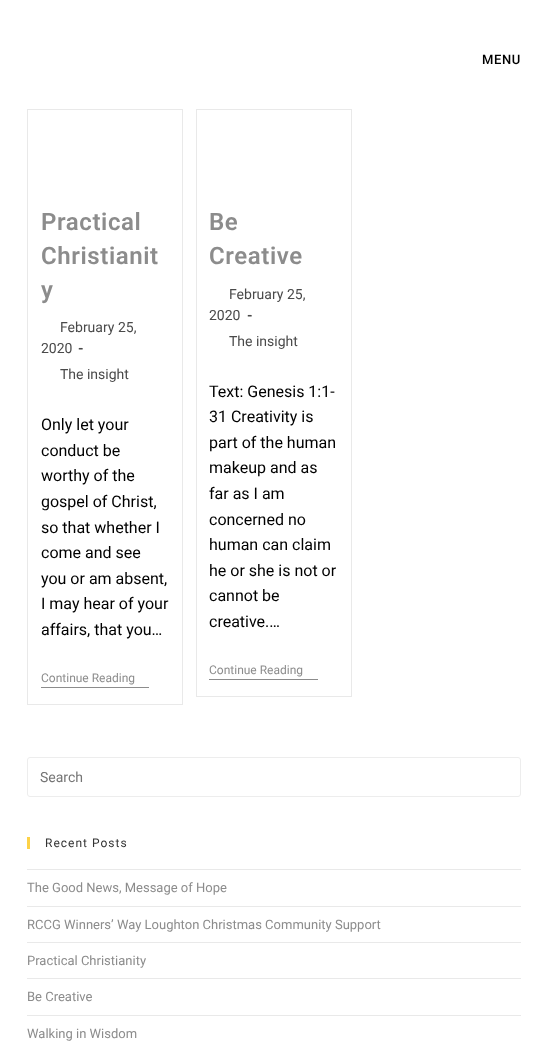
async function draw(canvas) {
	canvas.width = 548;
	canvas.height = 1042;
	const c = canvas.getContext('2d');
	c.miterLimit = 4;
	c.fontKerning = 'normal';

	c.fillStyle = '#fff';
	c.fillRect(0, 0, 548, 1042);
	c.letterSpacing = '0.6px';
	c.font = '500 13px Roboto';
	c.fillStyle = '#000';
	c.fillText('MENU', 482, 64);
	c.strokeStyle = '#e9e9e9';
	c.strokeRect(27.5, 109.5, 155, 595);
	c.font = '600 24px Roboto';
	c.fillStyle = '#8c8c8c';
	for (const [text, x, y] of [
		['Practical', 41, 230],
		['Christianit', 41, 264],
		['y', 41, 298],
	]) {
		c.fillText(text, x, y);
	}
	c.letterSpacing = '0px';
	c.font = '14px Roboto';
	c.fillStyle = '#4a4a4a';
	c.fillText('February 25,', 60, 332);
	c.fillText('2020', 41, 353);
	c.font = 'bold 14px Roboto';
	c.fillText('-', 78, 353);
	c.font = '14px Roboto';
	c.fillText('The insight', 60, 379);
	c.font = '16px Roboto';
	c.fillStyle = '#000';
	for (const [text, x, y] of [
		['Only let your', 41, 430],
		['conduct be', 41, 456],
		['worthy of the', 41, 481],
		['gospel of Christ,', 41, 507],
		['so that whether I', 41, 533],
		['come and see', 41, 558],
		['you or am absent,', 41, 584],
		['I may hear of your', 41, 609],
		['affairs, that you…', 41, 635],
	]) {
		c.fillText(text, x, y);
	}
	c.fillStyle = '#8c8c8c';
	c.fillRect(41, 687, 108, 1);
	c.font = '12px Roboto';
	c.fillText('Continue Reading', 41, 682);
	c.strokeRect(196.5, 109.5, 155, 587);
	c.letterSpacing = '0.6px';
	c.font = '600 24px Roboto';
	c.fillText('Be', 209, 230);
	c.fillText('Creative', 209, 264);
	c.letterSpacing = '0px';
	c.font = '14px Roboto';
	c.fillStyle = '#4a4a4a';
	c.fillText('February 25,', 229, 299);
	c.fillText('2020', 209, 320);
	c.font = 'bold 14px Roboto';
	c.fillText('-', 247, 320);
	c.font = '14px Roboto';
	c.fillText('The insight', 229, 346);
	c.font = '16px Roboto';
	c.fillStyle = '#000';
	for (const [text, x, y] of [
		['Text: Genesis 1:1-', 209, 397],
		['31 Creativity is', 209, 422],
		['part of the human', 209, 448],
		['makeup and as', 209, 473],
		['far as I am', 209, 499],
		['concerned no', 209, 525],
		['human can claim', 209, 550],
		['he or she is not or', 209, 576],
		['cannot be', 209, 601],
		['creative.…', 209, 627],
	]) {
		c.fillText(text, x, y);
	}
	c.fillStyle = '#8c8c8c';
	c.fillRect(209, 679, 109, 1);
	c.font = '12px Roboto';
	c.fillText('Continue Reading', 209, 674);
	c.beginPath();
	c.roundRect(27.5, 757.5, 493, 39, 2.5);
	c.strokeStyle = '#ededed';
	c.stroke();
	c.font = '14px Roboto';
	c.fillStyle = '#757575';
	c.fillText('Search', 40, 782);
	c.fillStyle = '#fdd247';
	c.fillRect(27, 837, 3, 12);
	c.letterSpacing = '1px';
	c.font = '12px Roboto';
	c.fillStyle = '#333';
	c.fillText('Recent Posts', 45, 847);
	c.fillStyle = '#e9e9e9';
	c.fillRect(27, 869, 494, 1);
	c.fillRect(27, 906, 494, 1);
	c.letterSpacing = '0px';
	c.font = '13px Roboto';
	c.fillStyle = '#8c8c8c';
	c.fillText('The Good News, Message of Hope', 27, 892);
	c.fillStyle = '#e9e9e9';
	c.fillRect(27, 942, 494, 1);
	c.fillStyle = '#8c8c8c';
	c.fillText('RCCG Winners’ Way Loughton Christmas Community Support', 27, 929);
	c.fillStyle = '#e9e9e9';
	c.fillRect(27, 978, 494, 1);
	c.fillStyle = '#8c8c8c';
	c.fillText('Practical Christianity', 27, 965);
	c.fillStyle = '#e9e9e9';
	c.fillRect(27, 1015, 494, 1);
	c.fillStyle = '#8c8c8c';
	c.fillText('Be Creative', 27, 1001);
	c.fillText('Walking in Wisdom', 27, 1038);
}

draw(document.querySelector('canvas'));
